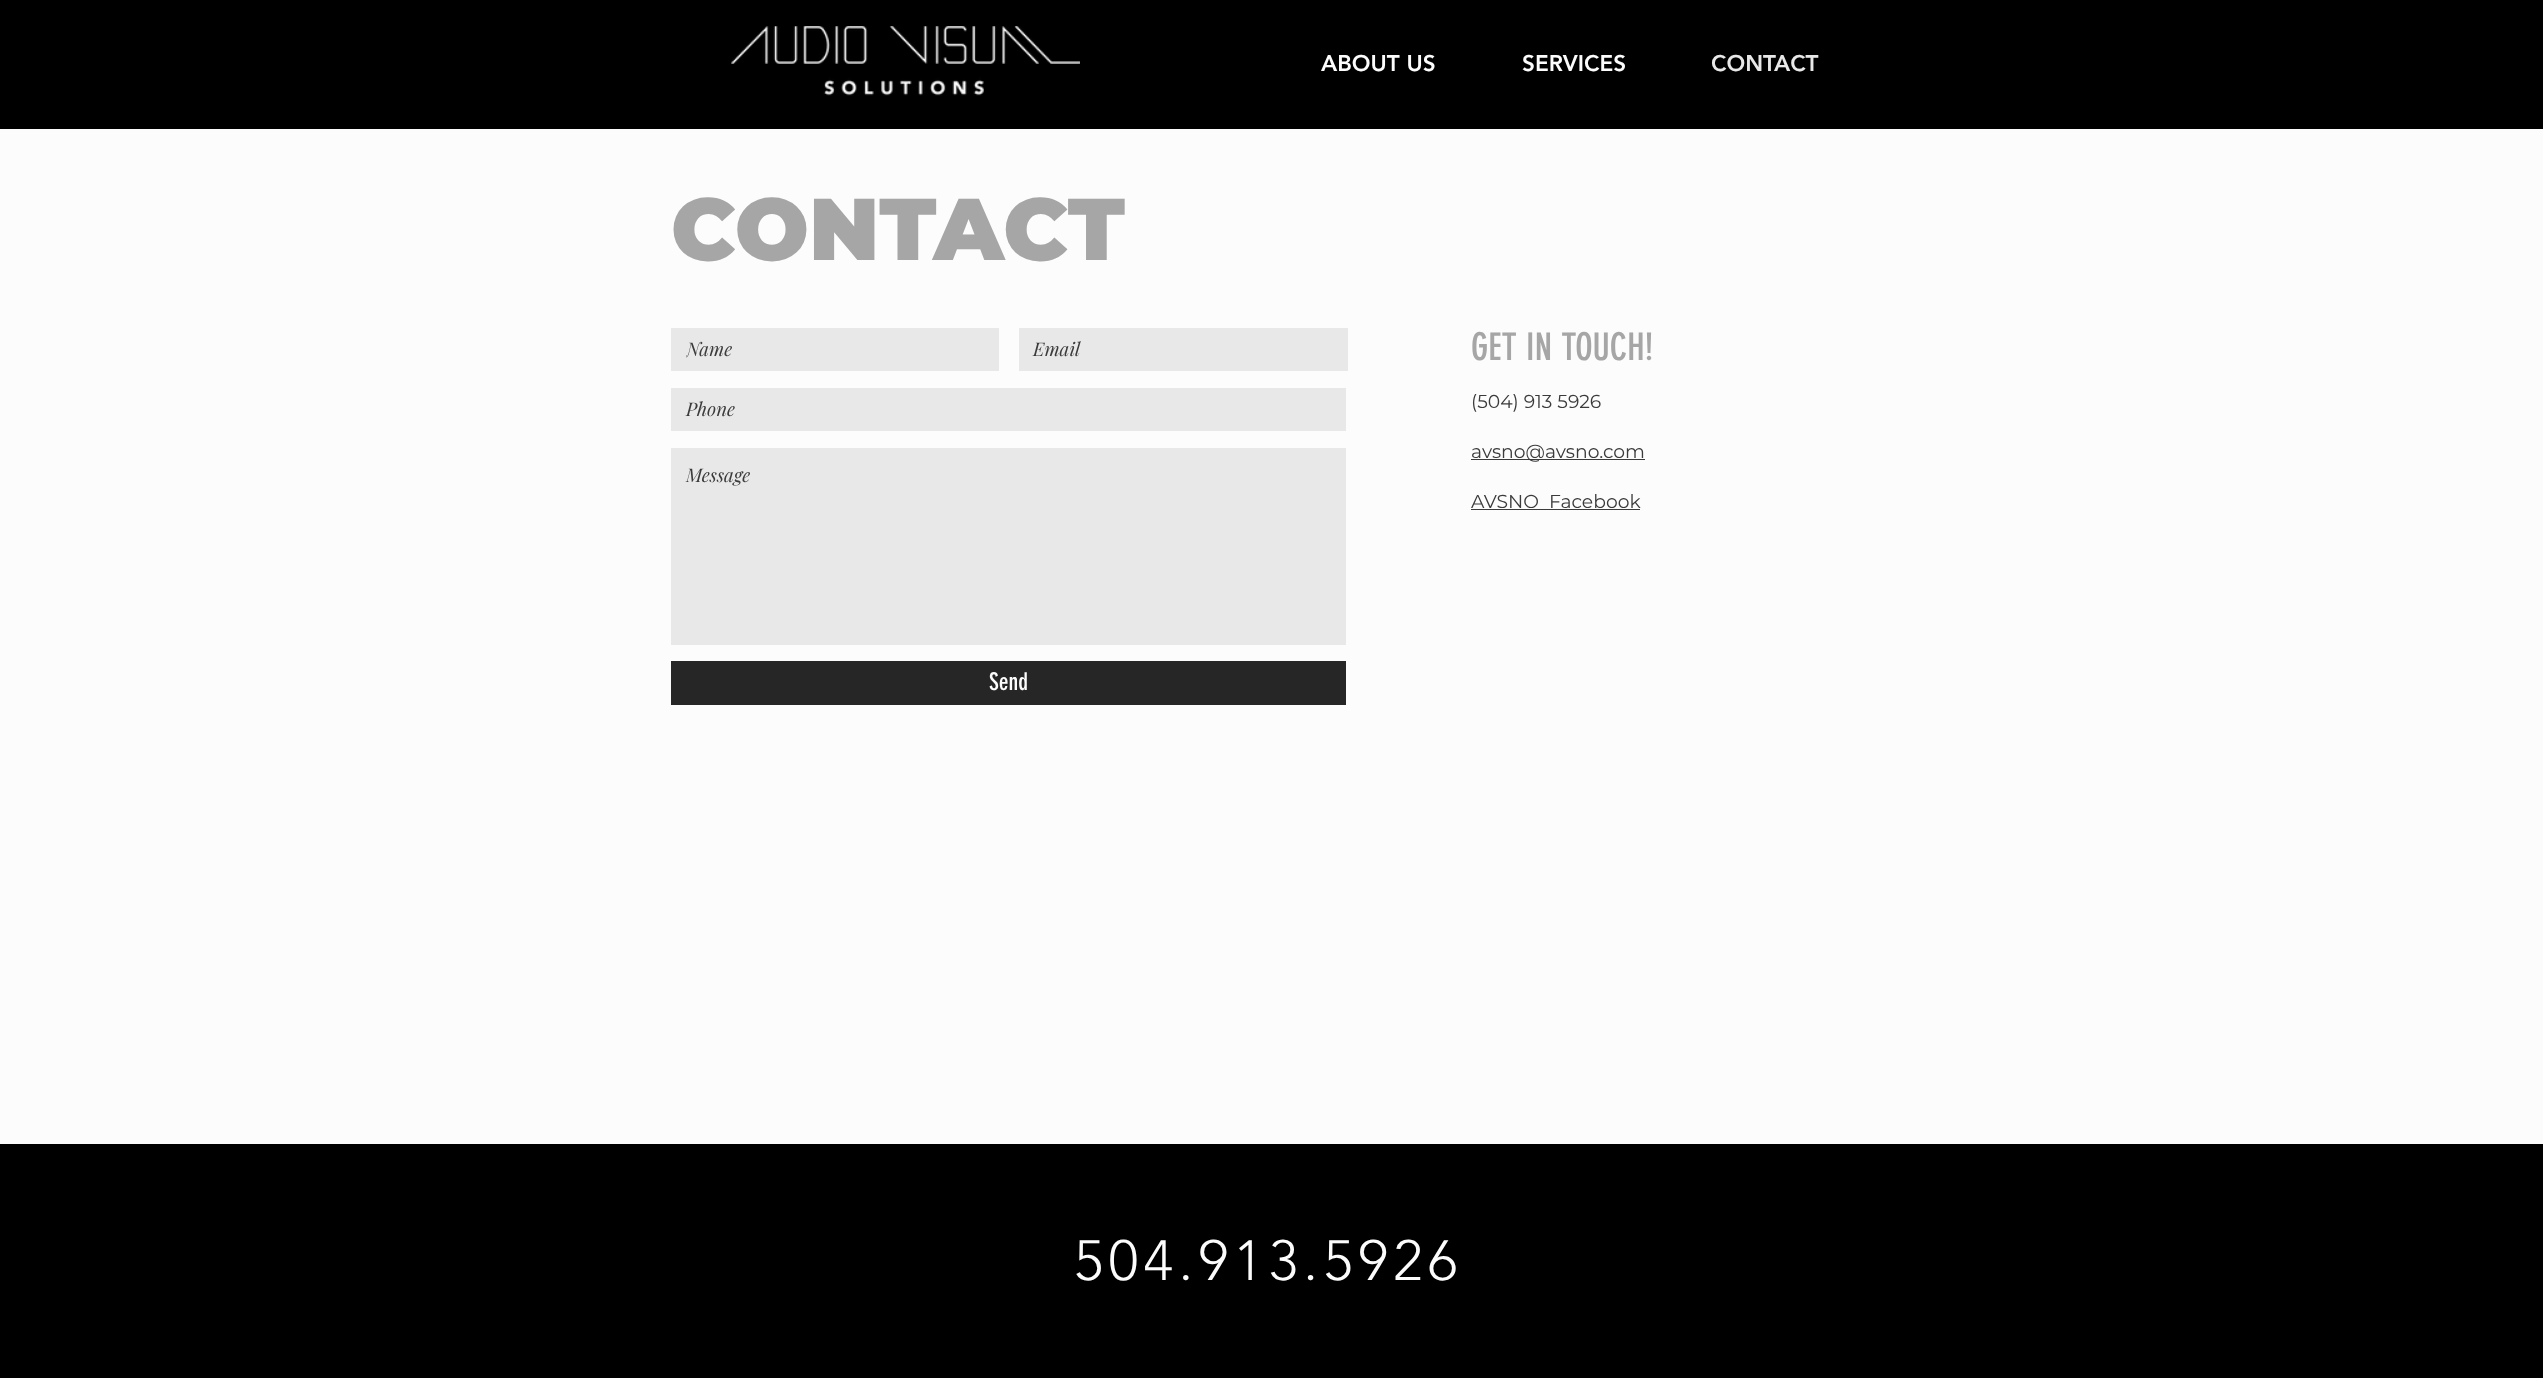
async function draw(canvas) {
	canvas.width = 2543;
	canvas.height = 1378;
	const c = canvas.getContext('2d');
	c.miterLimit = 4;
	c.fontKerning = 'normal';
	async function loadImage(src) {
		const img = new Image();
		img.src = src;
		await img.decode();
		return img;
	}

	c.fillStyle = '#fcfcfc';
	c.fillRect(0, 0, 2543, 1378);
	c.fillStyle = '#000';
	c.fillRect(0, 0, 2543, 129);
	c.drawImage(await loadImage('img1.png'), 731, 26, 349, 70);
	c.font = '900 22.5px "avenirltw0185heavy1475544"';
	c.fillStyle = '#fcfcfc';
	c.fillText('ABOUT US', 1321, 71);
	c.fillText('SERVICES', 1522, 71);
	c.fillStyle = '#e8e8e8';
	c.fillText('CONTACT', 1711, 71);
	c.font = '100 87.5px Montserrat';
	c.fillStyle = '#a6a6a6';
	c.fillText('CONTACT', 671, 260);
	c.fillStyle = '#e8e8e8';
	c.fillRect(671, 328, 328, 43);
	c.save();
	c.beginPath();
	c.rect(686, 336, 309, 25);
	c.clip();
	c.font = 'italic 18.75px Playfair Display';
	c.fillStyle = '#3b3b3b';
	c.fillText('Name', 686, 356);
	c.restore();
	c.fillRect(1019, 328, 329, 43);
	c.font = 'italic 18.75px Playfair Display';
	c.fillStyle = '#3b3b3b';
	c.fillText('Email', 1033, 356);
	c.fillStyle = '#e8e8e8';
	c.fillRect(671, 388, 675, 43);
	c.fillStyle = '#3b3b3b';
	c.fillText('Phone', 686, 416);
	c.fillStyle = '#e8e8e8';
	c.fillRect(671, 448, 675, 197);
	c.fillStyle = '#3b3b3b';
	c.fillText('Message', 686, 482);
	c.fillStyle = '#262626';
	c.fillRect(671, 661, 675, 44);
	c.font = '24px "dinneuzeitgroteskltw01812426"';
	c.fillStyle = '#fcfcfc';
	c.fillText('Send', 989, 690);
	c.font = '37.5px "dinneuzeitgroteskltw01812426"';
	c.fillStyle = '#a6a6a6';
	c.fillText('GET IN TOUCH!', 1471, 360);
	c.font = '18.75px Montserrat';
	c.fillStyle = '#3b3b3b';
	c.fillText('(504) 913 5926', 1471, 408);
	c.fillRect(1471, 459, 174, 1);
	c.fillText('avsno@avsno.com', 1471, 458);
	c.fillText('AVSNO  Facebook', 1471, 508);
	c.fillRect(1471, 509, 169, 1);
	c.fillStyle = '#000';
	c.fillRect(0, 1144, 2543, 234);
	c.letterSpacing = '5.6px';
	c.font = '300 56.25px "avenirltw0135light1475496"';
	c.fillStyle = '#fcfcfc';
	c.fillText('504.913.5926', 1074, 1280);
}

draw(document.querySelector('canvas'));
